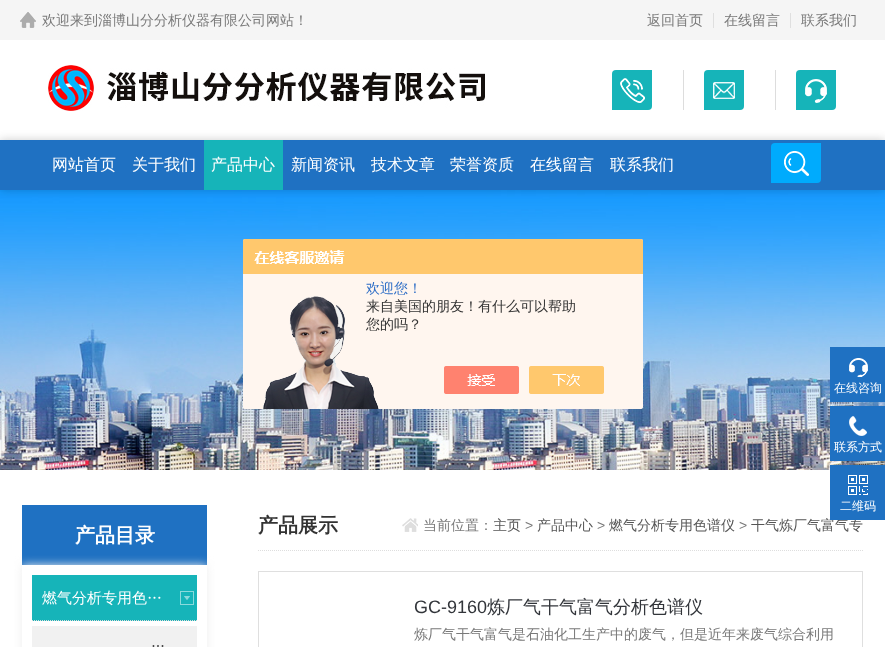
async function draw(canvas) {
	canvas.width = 885;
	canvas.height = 647;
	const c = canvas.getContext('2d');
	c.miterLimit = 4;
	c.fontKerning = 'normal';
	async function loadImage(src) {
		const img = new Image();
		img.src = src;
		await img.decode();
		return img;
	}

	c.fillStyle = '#fff';
	c.fillRect(0, 0, 885, 647);
	c.fillStyle = '#f5f5f5';
	c.fillRect(0, 0, 885, 40);
	c.drawImage(await loadImage('img1.png'), 20, 12, 16, 16);
	c.font = '500 14px WenQuanYi Zen Hei';
	c.fillStyle = '#797979';
	c.fillText('欢迎来到淄博山分分析仪器有限公司网站！', 42, 25);
	c.fillText('返回首页', 647, 25);
	c.fillStyle = '#dfdfdf';
	c.fillRect(713, 13, 1, 15);
	c.fillStyle = '#797979';
	c.fillText('在线留言', 724, 25);
	c.fillStyle = '#dfdfdf';
	c.fillRect(790, 13, 1, 15);
	c.fillStyle = '#797979';
	c.fillText('联系我们', 801, 25);
	c.drawImage(await loadImage('img2.png'), 48, 65, 437, 46);
	c.fillStyle = '#ddd';
	c.fillRect(683, 70, 1, 40);
	c.fillStyle = '#16b4b9';
	c.beginPath();
	c.roundRect(612, 70, 40, 40, [4, 0, 4, 0]);
	c.fill();
	c.drawImage(await loadImage('img3.png'), 620, 78, 25, 25);
	c.fillStyle = '#ddd';
	c.fillRect(775, 70, 1, 40);
	c.fillStyle = '#16b4b9';
	c.beginPath();
	c.roundRect(704, 70, 40, 40, [4, 0, 4, 0]);
	c.fill();
	c.drawImage(await loadImage('img4.png'), 713, 82, 22, 17);
	c.beginPath();
	c.roundRect(796, 70, 40, 40, [4, 0, 4, 0]);
	c.fill();
	c.drawImage(await loadImage('img5.png'), 805, 79, 22, 24);
	c.drawImage(await loadImage('img7.png'), 0, 190, 885, 280);
	c.fillStyle = '#00000033';
	c.filter = 'blur(5px)';
	c.beginPath();
	c.rect(0, 140, 885, 50);
	c.fill();
	c.filter = 'none';
	c.fillStyle = '#1f71c2';
	c.fillRect(0, 140, 885, 50);
	c.font = '500 16px WenQuanYi Zen Hei';
	c.fillStyle = '#fff';
	c.fillText('网站首页', 52, 170);
	c.fillText('关于我们', 132, 170);
	c.fillStyle = '#16b4b9';
	c.fillRect(204, 140, 79, 50);
	c.fillStyle = '#fff';
	for (const [text, x, y] of [
		['产品中心', 211, 170],
		['新闻资讯', 291, 170],
		['技术文章', 371, 170],
		['荣誉资质', 450, 170],
		['在线留言', 530, 170],
		['联系我们', 610, 170],
	]) {
		c.fillText(text, x, y);
	}
	c.fillStyle = '#00abfd';
	c.beginPath();
	c.roundRect(771, 143, 50, 40, [4, 0, 4, 0]);
	c.fill();
	c.drawImage(await loadImage('img6.png'), 784, 151, 25, 25);
	c.drawImage(await loadImage('img8.png'), 243, 239, 400, 170);
	c.font = '500 14px WenQuanYi Zen Hei';
	c.fillStyle = '#2e6ec6';
	c.fillText('欢迎您！', 366, 293);
	c.fillStyle = '#333';
	c.fillText('来自美国的朋友！有什么可以帮助', 366, 311);
	c.fillText('您的吗？', 366, 329);
	c.fillStyle = '#1f71c2';
	c.fillRect(830, 347, 55, 55);
	c.drawImage(await loadImage('img9.png'), 849, 358, 19, 19);
	c.font = '500 12px WenQuanYi Zen Hei';
	c.fillStyle = '#fff';
	c.fillText('在线咨询', 834, 392);
	c.fillStyle = '#1f71c2';
	c.fillRect(830, 406, 55, 55);
	c.drawImage(await loadImage('img10.png'), 849, 416, 18, 20);
	c.fillStyle = '#fff';
	c.fillText('联系方式', 834, 451);
	c.font = '500 14px WenQuanYi Zen Hei';
	c.fillStyle = '#555';
	c.fillText('干气炼厂气富气专', 751, 530);
	c.fillStyle = '#1f71c2';
	c.fillRect(830, 465, 55, 55);
	c.drawImage(await loadImage('img11.png'), 848, 475, 20, 20);
	c.font = '500 12px WenQuanYi Zen Hei';
	c.fillStyle = '#fff';
	c.fillText('二维码', 840, 510);
	c.fillStyle = '#1f71c2';
	c.fillRect(22, 505, 185, 60);
	c.font = 'bold 20px WenQuanYi Zen Hei';
	c.fillStyle = '#fff';
	c.fillText('产品目录', 75, 542);
	c.save();
	c.beginPath();
	c.moveTo(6, 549);
	c.lineTo(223, 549);
	c.lineTo(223, 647);
	c.lineTo(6, 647);
	c.closePath();
	c.moveTo(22, 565);
	c.lineTo(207, 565);
	c.lineTo(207, 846);
	c.lineTo(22, 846);
	c.closePath();
	c.clip('evenodd');
	c.fillStyle = '#eee';
	c.filter = 'blur(5px)';
	c.beginPath();
	c.rect(22, 565, 185, 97);
	c.fill();
	c.filter = 'none';
	c.restore();
	c.fillStyle = '#16b4b9';
	c.fillRect(32, 575, 165, 46);
	c.beginPath();
	c.moveTo(32, 620.5);
	c.lineTo(197, 620.5);
	c.strokeStyle = '#dedede';
	c.setLineDash([1, 1]);
	c.stroke();
	c.font = '500 15px WenQuanYi Zen Hei';
	c.fillStyle = '#fff';
	c.fillText('燃气分析专用色…', 42, 603);
	c.drawImage(await loadImage('img12.png'), 180, 591, 14, 14);
	c.fillStyle = '#f1f1f1';
	c.fillRect(32, 626, 165, 21);
	c.font = '500 14px WenQuanYi Zen Hei';
	c.fillStyle = '#3a3a3a';
	c.fillText('…', 151, 651);
	c.beginPath();
	c.moveTo(258, 550.5);
	c.lineTo(863, 550.5);
	c.stroke();
	c.font = 'bold 20px WenQuanYi Zen Hei';
	c.fillStyle = '#333';
	c.fillText('产品展示', 258, 532);
	c.drawImage(await loadImage('img13.png'), 402, 518, 16, 14);
	c.font = '500 14px WenQuanYi Zen Hei';
	c.fillStyle = '#797979';
	c.fillText('当前位置：', 423, 530);
	c.fillStyle = '#555';
	c.fillText('主页', 493, 530);
	c.font = '14px Liberation Sans';
	c.fillStyle = '#797979';
	c.fillText('>', 525, 530);
	c.font = '500 14px WenQuanYi Zen Hei';
	c.fillStyle = '#555';
	c.fillText('产品中心', 537, 530);
	c.font = '14px Liberation Sans';
	c.fillStyle = '#797979';
	c.fillText('>', 597, 530);
	c.font = '500 14px WenQuanYi Zen Hei';
	c.fillStyle = '#555';
	c.fillText('燃气分析专用色谱仪', 609, 530);
	c.font = '14px Liberation Sans';
	c.fillStyle = '#797979';
	c.fillText('>', 739, 530);
	c.strokeStyle = '#dfdfdf';
	c.setLineDash([]);
	c.strokeRect(258.5, 571.5, 604, 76);
	c.font = '18px Liberation Sans';
	c.fillStyle = '#32353a';
	c.fillText('GC-9160', 414, 613);
	c.font = '500 18px WenQuanYi Zen Hei';
	c.fillText('炼厂气干气富气分析色谱仪', 487, 613);
	c.font = '500 14px WenQuanYi Zen Hei';
	c.fillStyle = '#797979';
	c.fillText('炼厂气干气富气是石油化工生产中的废气，但是近年来废气综合利用', 414, 639);
}

draw(document.querySelector('canvas'));
